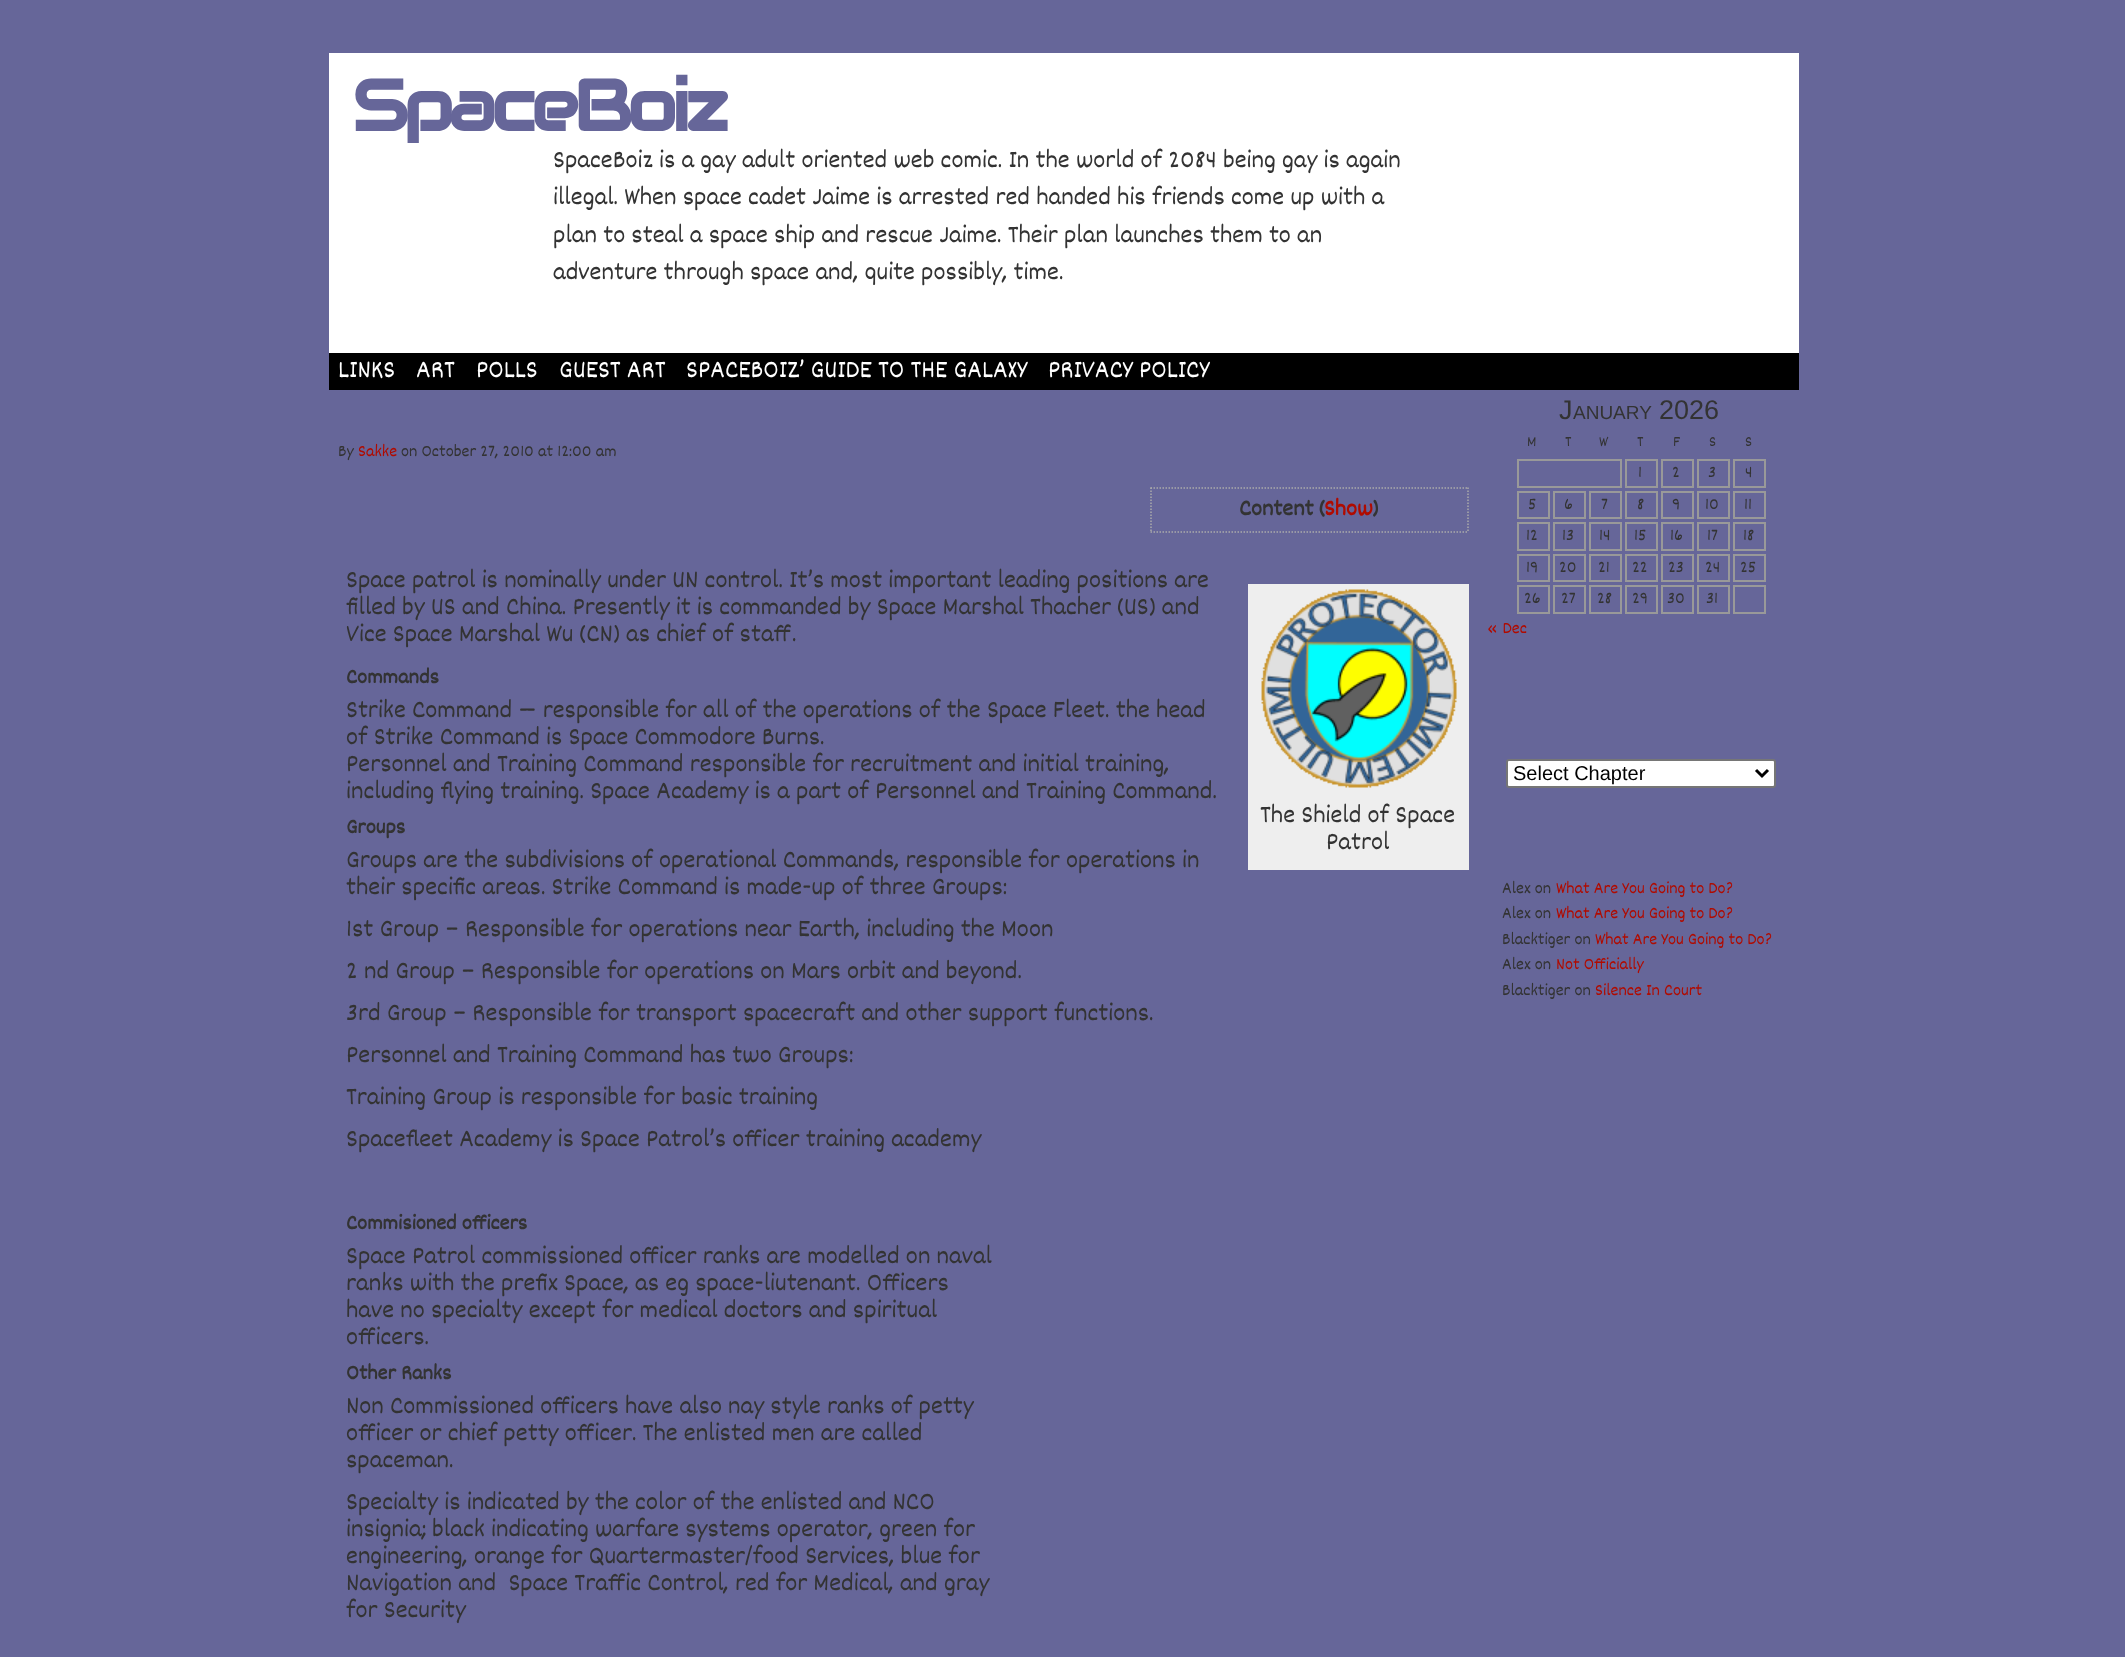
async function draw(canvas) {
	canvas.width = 2125;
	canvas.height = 1657;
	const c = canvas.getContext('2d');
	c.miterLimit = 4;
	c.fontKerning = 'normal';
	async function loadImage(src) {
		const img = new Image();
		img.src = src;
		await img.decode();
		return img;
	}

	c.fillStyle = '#669';
	c.fillRect(0, 0, 2125, 1657);
	c.fillStyle = '#fff';
	c.fillRect(329, 53, 1470, 300);
	c.letterSpacing = '-4.5px';
	c.font = 'bold 72px Audiowide';
	c.fillStyle = '#669';
	c.fillText('SpaceBoiz', 352, 131);
	c.letterSpacing = '0px';
	c.font = '27px Dekko';
	c.fillStyle = '#333';
	for (const [text, x, y] of [
		['SpaceBoiz is a gay adult oriented web comic. In the world of 2084 being gay is again', 553, 167],
		['illegal. When space cadet Jaime is arrested red handed his friends come up with a', 553, 204],
		['plan to steal a space ship and rescue Jaime. Their plan launches them to an', 553, 242],
		['adventure through space and, quite possibly, time.', 553, 279],
	]) {
		c.fillText(text, x, y);
	}
	c.fillStyle = '#000';
	c.fillRect(329, 353, 1470, 37);
	c.fillStyle = '#fff';
	for (const [text, x, y] of [
		['LINKS', 338, 377],
		['ART', 416, 377],
		['POLLS', 476, 377],
		['GUEST ART', 559, 377],
		['SPACEBOIZ’ GUIDE TO THE GALAXY', 686, 377],
		['PRIVACY POLICY', 1048, 377],
	]) {
		c.fillText(text, x, y);
	}
	c.font = '18px Dekko';
	c.fillStyle = '#333';
	c.fillText('By', 338, 456);
	c.fillStyle = '#b00b00';
	c.fillText('Sakke', 358, 456);
	c.fillStyle = '#333';
	c.fillText('on October 27, 2010 at 12:00 am', 401, 456);
	c.beginPath();
	c.moveTo(1150.5, 488);
	c.lineTo(1468.5, 488);
	c.strokeStyle = '#aaa';
	c.lineWidth = 1.5;
	c.setLineDash([1.5, 1.5]);
	c.stroke();
	c.beginPath();
	c.moveTo(1468, 487.5);
	c.lineTo(1468, 532.5);
	c.stroke();
	c.beginPath();
	c.moveTo(1150.5, 532);
	c.lineTo(1468.5, 532);
	c.stroke();
	c.beginPath();
	c.moveTo(1151, 487.5);
	c.lineTo(1151, 532.5);
	c.stroke();
	c.font = 'bold 24.5px Dekko';
	c.fillText('Content (', 1239, 515);
	c.fillStyle = '#b00b00';
	c.fillText('Show', 1324, 515);
	c.fillStyle = '#333';
	c.fillText(')', 1372, 515);
	c.font = '27px Dekko';
	for (const [text, x, y] of [
		['Space patrol is nominally under UN control. It’s most important leading positions are', 346, 587],
		['filled by US and China. Presently it is commanded by Space Marshal Thacher (US) and', 346, 614],
		['Vice Space Marshal Wu (CN) as chief of staff.', 346, 641],
	]) {
		c.fillText(text, x, y);
	}
	c.font = 'bold 22.5px Dekko';
	c.fillText('Commands', 346, 683);
	c.font = '27px Dekko';
	for (const [text, x, y] of [
		['Strike Command — responsible for all of the operations of the Space Fleet. the head', 346, 717],
		['of Strike Command is Space Commodore Burns.', 346, 744],
		['Personnel and Training Command responsible for recruitment and initial training,', 346, 771],
		['including flying training. Space Academy is a part of Personnel and Training Command.', 346, 798],
	]) {
		c.fillText(text, x, y);
	}
	c.font = 'bold 22.5px Dekko';
	c.fillText('Groups', 346, 833);
	c.fillStyle = '#eee';
	c.fillRect(1248, 584, 221, 286);
	c.drawImage(await loadImage('img1.png'), 1261, 589, 196, 199);
	c.font = '27px Dekko';
	c.fillStyle = '#333';
	for (const [text, x, y] of [
		['The Shield of Space', 1260, 822],
		['Patrol', 1326, 849],
		['Groups are the subdivisions of operational Commands, responsible for operations in', 346, 867],
		['their specific areas. Strike Command is made-up of three Groups:', 346, 894],
		['1st Group – Responsible for operations near Earth, including the Moon', 346, 936],
		['2 nd Group – Responsible for operations on Mars orbit and beyond.', 346, 978],
		['3rd Group – Responsible for transport spacecraft and other support functions.', 346, 1020],
		['Personnel and Training Command has two Groups:', 346, 1062],
		['Training Group is responsible for basic training', 346, 1104],
		['Spacefleet Academy is Space Patrol’s officer training academy', 346, 1146],
	]) {
		c.fillText(text, x, y);
	}
	c.font = 'bold 22.5px Dekko';
	c.fillText('Commisioned officers', 346, 1229);
	c.font = '27px Dekko';
	for (const [text, x, y] of [
		['Space Patrol commissioned officer ranks are modelled on naval', 346, 1263],
		['ranks with the prefix Space, as eg space-liutenant. Officers', 346, 1290],
		['have no specialty except for medical doctors and spiritual', 346, 1317],
		['officers.', 346, 1344],
	]) {
		c.fillText(text, x, y);
	}
	c.font = 'bold 22.5px Dekko';
	c.fillText('Other Ranks', 346, 1379);
	c.font = '27px Dekko';
	for (const [text, x, y] of [
		['Non Commissioned officers have also nay style ranks of petty', 346, 1413],
		['officer or chief petty officer. The enlisted men are called', 346, 1440],
		['spaceman.', 346, 1467],
		['Specialty is indicated by the color of the enlisted and NCO', 346, 1509],
		['insignia; black indicating warfare systems operator, green for', 346, 1536],
		['engineering, orange for Quartermaster/food Services, blue for', 346, 1563],
		['Navigation and  Space Traffic Control, red for Medical, and gray', 346, 1590],
		['for Security', 346, 1617],
	]) {
		c.fillText(text, x, y);
	}
	c.font = '27px Liberation Sans';
	c.fillText('J', 1559, 419);
	c.font = '19px Liberation Sans';
	c.fillText('ANUARY', 1573, 419);
	c.font = '27px Liberation Sans';
	c.fillText('2026', 1659, 419);
	c.font = '16px Dekko';
	for (const [text, x, y] of [
		['M', 1527, 446],
		['T', 1565, 446],
		['W', 1599, 446],
		['T', 1637, 446],
		['F', 1673, 446],
		['S', 1709, 446],
		['S', 1745, 446],
	]) {
		c.fillText(text, x, y);
	}
	c.strokeStyle = '#999';
	c.lineWidth = 2;
	c.setLineDash([]);
	c.strokeRect(1518, 460, 103, 27);
	c.strokeRect(1626, 460, 31, 27);
	c.font = '18px Dekko';
	c.fillText('1', 1638, 477);
	c.strokeRect(1662, 460, 31, 27);
	c.fillText('2', 1672, 477);
	c.strokeRect(1698, 460, 31, 27);
	c.fillText('3', 1708, 477);
	c.strokeRect(1734, 460, 31, 27);
	c.fillText('4', 1745, 477);
	c.strokeRect(1518, 492, 31, 26);
	c.fillText('5', 1528, 509);
	c.strokeRect(1554, 492, 31, 26);
	c.fillText('6', 1564, 509);
	c.strokeRect(1590, 492, 31, 26);
	c.fillText('7', 1601, 509);
	c.strokeRect(1626, 492, 31, 26);
	c.fillText('8', 1637, 509);
	c.strokeRect(1662, 492, 31, 26);
	c.fillText('9', 1672, 509);
	c.strokeRect(1698, 492, 31, 26);
	c.fillText('10', 1705, 509);
	c.strokeRect(1734, 492, 31, 26);
	c.fillText('11', 1744, 509);
	c.strokeRect(1518, 523, 31, 27);
	c.fillText('12', 1526, 540);
	c.strokeRect(1554, 523, 31, 27);
	c.fillText('13', 1562, 540);
	c.strokeRect(1590, 523, 31, 27);
	c.fillText('14', 1599, 540);
	c.strokeRect(1626, 523, 31, 27);
	c.fillText('15', 1634, 540);
	c.strokeRect(1662, 523, 31, 27);
	c.fillText('16', 1670, 540);
	c.strokeRect(1698, 523, 31, 27);
	c.fillText('17', 1707, 540);
	c.strokeRect(1734, 523, 31, 27);
	c.fillText('18', 1743, 540);
	c.strokeRect(1518, 555, 31, 26);
	c.fillText('19', 1526, 572);
	c.strokeRect(1554, 555, 31, 26);
	c.fillText('20', 1559, 572);
	c.strokeRect(1590, 555, 31, 26);
	c.fillText('21', 1598, 572);
	c.strokeRect(1626, 555, 31, 26);
	c.fillText('22', 1632, 572);
	c.strokeRect(1662, 555, 31, 26);
	c.fillText('23', 1668, 572);
	c.strokeRect(1698, 555, 31, 26);
	c.fillText('24', 1705, 572);
	c.strokeRect(1734, 555, 31, 26);
	c.fillText('25', 1740, 572);
	c.strokeRect(1518, 586, 31, 27);
	c.fillText('26', 1524, 603);
	c.strokeRect(1554, 586, 31, 27);
	c.fillText('27', 1561, 603);
	c.strokeRect(1590, 586, 31, 27);
	c.fillText('28', 1597, 603);
	c.strokeRect(1626, 586, 31, 27);
	c.fillText('29', 1632, 603);
	c.strokeRect(1662, 586, 31, 27);
	c.fillText('30', 1667, 603);
	c.strokeRect(1698, 586, 31, 27);
	c.fillText('31', 1706, 603);
	c.strokeRect(1734, 586, 31, 27);
	c.fillStyle = '#b00b00';
	c.fillText('« Dec', 1487, 633);
	c.fillStyle = '#fff';
	c.beginPath();
	c.roundRect(1507, 760, 268, 27, 2);
	c.fill();
	c.strokeStyle = '#767676';
	c.stroke();
	c.beginPath();
	c.moveTo(1756, 770);
	c.lineTo(1762, 776);
	c.lineTo(1768, 770);
	c.strokeStyle = '#000';
	c.lineWidth = 3;
	c.stroke();
	c.font = '20px Liberation Sans';
	c.fillStyle = '#000';
	c.fillText('Select Chapter', 1513, 780);
	c.font = '18px Dekko';
	c.fillStyle = '#333';
	c.fillText('Alex on', 1502, 893);
	c.fillStyle = '#b00b00';
	c.fillText('What Are You Going to Do?', 1556, 893);
	c.fillStyle = '#333';
	c.fillText('Alex on', 1502, 918);
	c.fillStyle = '#b00b00';
	c.fillText('What Are You Going to Do?', 1556, 918);
	c.fillStyle = '#333';
	c.fillText('Blacktiger on', 1502, 944);
	c.fillStyle = '#b00b00';
	c.fillText('What Are You Going to Do?', 1595, 944);
	c.fillStyle = '#333';
	c.fillText('Alex on', 1502, 969);
	c.fillStyle = '#b00b00';
	c.fillText('Not Officially', 1556, 969);
	c.fillStyle = '#333';
	c.fillText('Blacktiger on', 1502, 995);
	c.fillStyle = '#b00b00';
	c.fillText('Silence In Court', 1595, 995);
}

draw(document.querySelector('canvas'));
